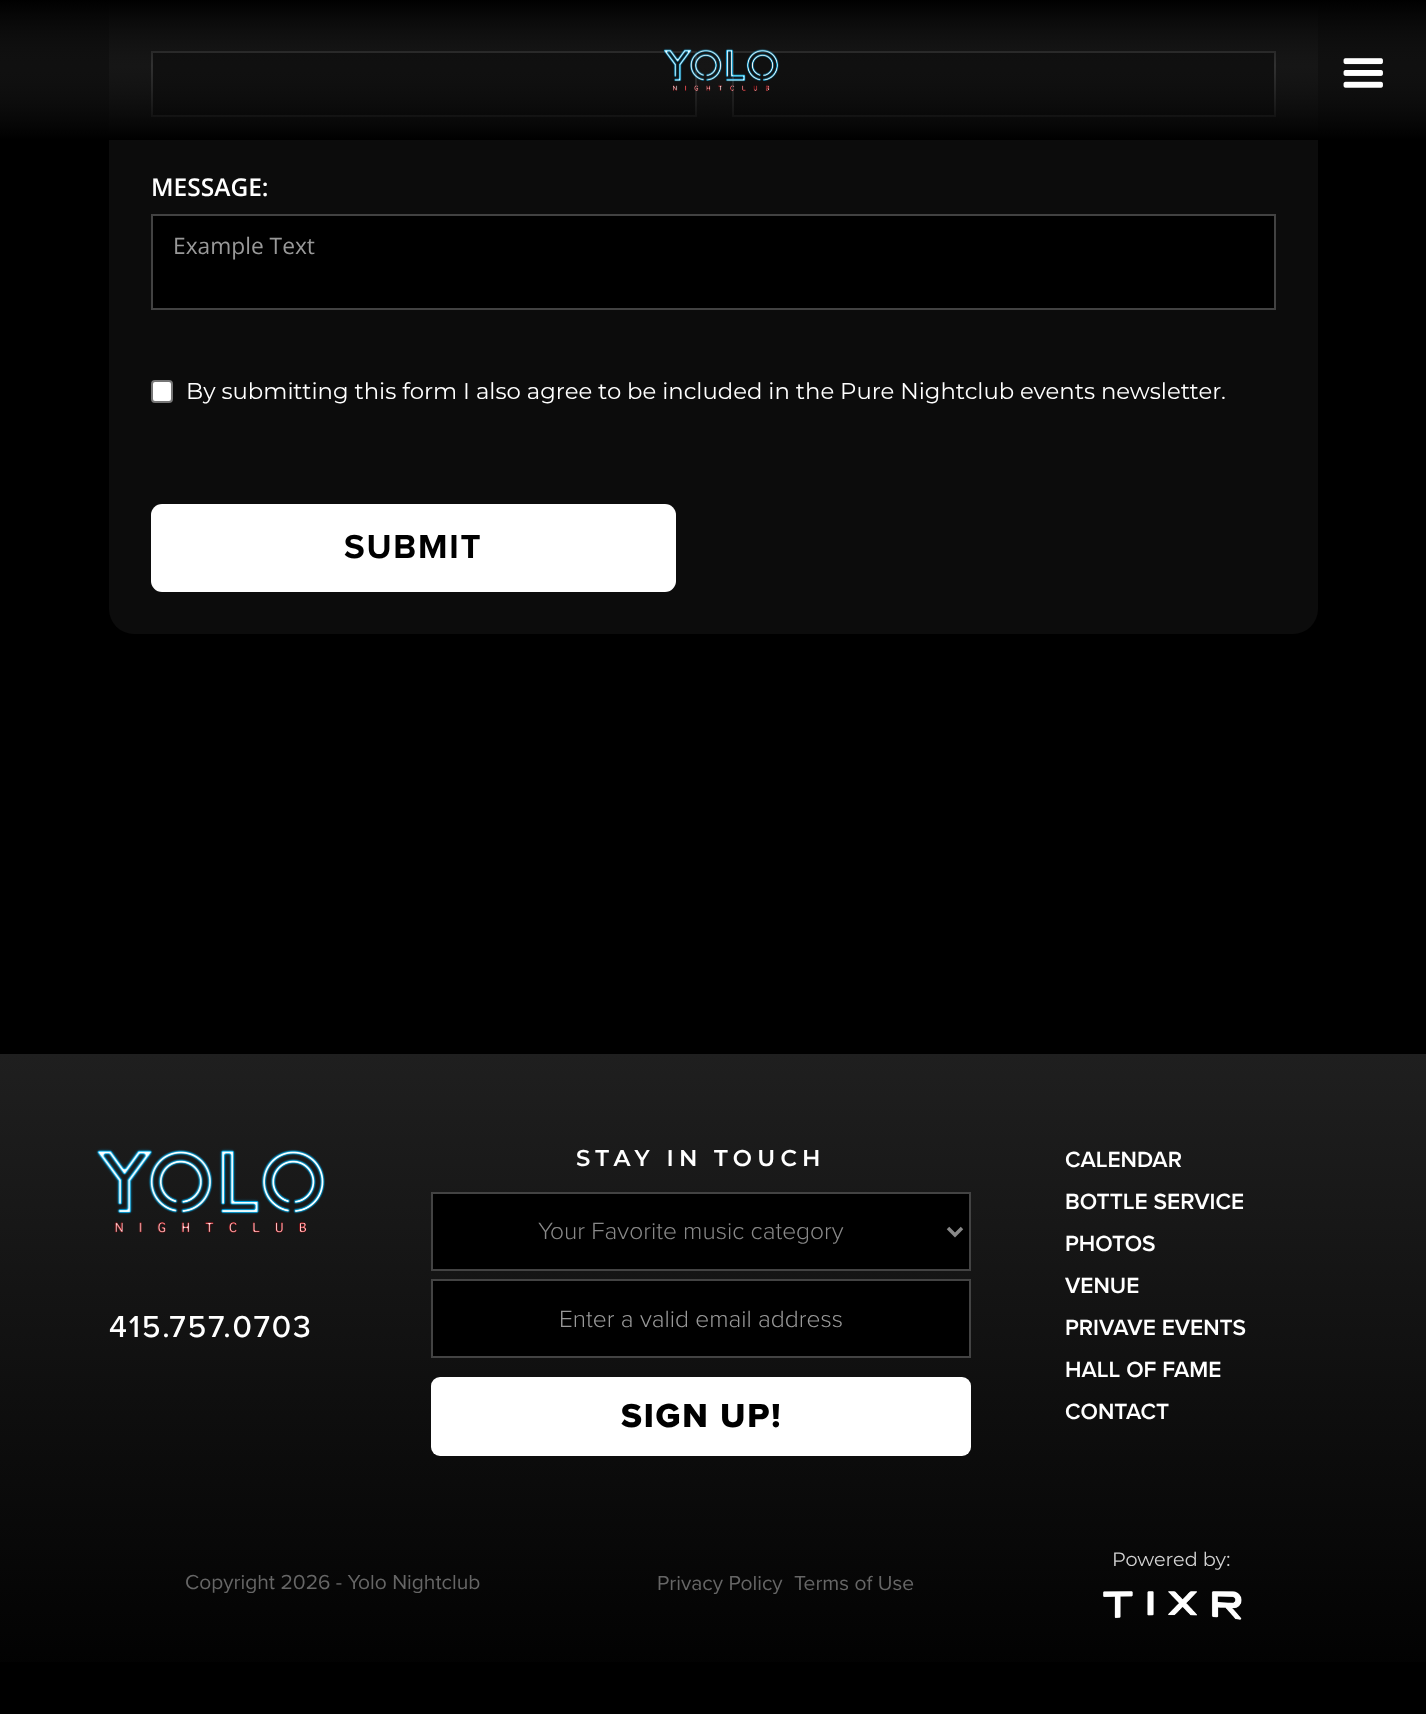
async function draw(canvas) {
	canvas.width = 1426;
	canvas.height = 1714;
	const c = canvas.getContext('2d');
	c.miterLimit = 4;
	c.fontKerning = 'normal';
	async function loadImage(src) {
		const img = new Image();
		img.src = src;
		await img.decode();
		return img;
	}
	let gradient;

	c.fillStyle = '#000';
	c.fillRect(0, 0, 1426, 1714);
	c.fillStyle = '#0c0c0c';
	c.beginPath();
	c.roundRect(109, -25, 1209, 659, 25);
	c.fill();
	c.fillStyle = '#000';
	c.beginPath();
	c.rect(152, 52, 544, 64);
	c.fill();
	c.strokeStyle = '#424242';
	c.lineWidth = 2;
	c.stroke();
	c.beginPath();
	c.rect(733, 52, 542, 64);
	c.fill();
	c.stroke();
	gradient = c.createLinearGradient(713, 0, 713, 140);
	gradient.addColorStop(0, '#000');
	gradient.addColorStop(0.47, '#20202080');
	gradient.addColorStop(1, '#000');
	c.fillStyle = gradient;
	c.fillRect(0, 0, 1426, 140);
	c.drawImage(await loadImage('img1.png'), 663, 48, 116, 43);
	c.drawImage(await loadImage('img2.png'), 1343, 58, 40, 30);
	c.font = '600 24.5px Open Sans';
	c.fillStyle = '#fff';
	c.fillText('MESSAGE:', 151, 196);
	c.fillStyle = '#000';
	c.beginPath();
	c.rect(152, 215, 1123, 94);
	c.fill();
	c.stroke();
	c.font = '22.75px Open Sans';
	c.fillStyle = '#999';
	c.fillText('Example Text', 173, 254);
	c.fillStyle = '#fff';
	c.beginPath();
	c.roundRect(152, 381, 20, 21, 3);
	c.fill();
	c.strokeStyle = '#767676';
	c.stroke();
	c.font = '22.75px Montserrat';
	c.fillText('By submitting this form I also agree to be included in the Pure Nightclub events newsletter.', 186, 399);
	c.beginPath();
	c.roundRect(151, 504, 525, 88, 11);
	c.fill();
	c.letterSpacing = '1.75px';
	c.font = 'bold 34.5px Proxima Nova';
	c.fillStyle = '#000';
	c.fillText('SUBMIT', 344, 558);
	gradient = c.createLinearGradient(713, 1055, 713, 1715);
	gradient.addColorStop(0, '#1f1f1f');
	gradient.addColorStop(1, '#000');
	c.fillStyle = gradient;
	c.fillRect(0, 1056, 1426, 606);
	c.fillStyle = '#1f1f1f';
	c.fillRect(0, 1054, 1426, 2);
	c.drawImage(await loadImage('img3.png'), 96, 1148, 229, 85);
	c.font = '500 31.5px Proxima Nova';
	c.fillStyle = '#fff';
	c.fillText('415.757.0703', 109, 1337);
	c.letterSpacing = '5.25px';
	c.font = '600 22.75px Montserrat';
	c.fillText('STAY IN TOUCH', 576, 1166);
	c.fillStyle = '#000';
	c.beginPath();
	c.rect(432, 1193, 538, 77);
	c.fill();
	c.strokeStyle = '#434343';
	c.stroke();
	c.beginPath();
	c.moveTo(948, 1228);
	c.lineTo(955, 1235);
	c.lineTo(962, 1228);
	c.strokeStyle = '#898989';
	c.lineWidth = 3.5;
	c.stroke();
	c.letterSpacing = '0px';
	c.font = '300 24.5px Proxima Nova';
	c.fillStyle = '#898989';
	c.fillText('Your Favorite music category', 538, 1239);
	c.fillStyle = '#000';
	c.beginPath();
	c.rect(432, 1280, 538, 77);
	c.fill();
	c.strokeStyle = '#434343';
	c.lineWidth = 2;
	c.stroke();
	c.fillStyle = '#999';
	c.fillText('Enter a valid email address', 559, 1327);
	c.fillStyle = '#fff';
	c.beginPath();
	c.roundRect(431, 1377, 540, 79, 9);
	c.fill();
	c.letterSpacing = '1.75px';
	c.font = '800 34.5px Proxima Nova';
	c.fillStyle = '#000';
	c.fillText('SIGN UP!', 621, 1427);
	c.letterSpacing = '0px';
	c.font = '600 22.75px Proxima Nova';
	c.fillStyle = '#fff';
	for (const [text, x, y] of [
		['CALENDAR', 1065, 1167],
		['BOTTLE SERVICE', 1065, 1209],
		['PHOTOS', 1065, 1251],
		['VENUE', 1065, 1293],
		['PRIVAVE EVENTS', 1065, 1335],
		['HALL OF FAME', 1065, 1377],
		['CONTACT', 1065, 1419],
	]) {
		c.fillText(text, x, y);
	}
	c.font = '19.25px Montserrat';
	c.fillStyle = '#d3d3d3';
	c.fillText('Powered by:', 1112, 1566);
	c.drawImage(await loadImage('img4.png'), 1103, 1591, 139, 29);
	c.font = '21px Proxima Nova';
	c.fillStyle = '#666';
	for (const [text, x, y] of [
		['Copyright 2026 - Yolo Nightclub', 185, 1589],
		['Privacy Policy', 657, 1590],
		['Terms of Use', 794, 1590],
	]) {
		c.fillText(text, x, y);
	}
}

draw(document.querySelector('canvas'));
